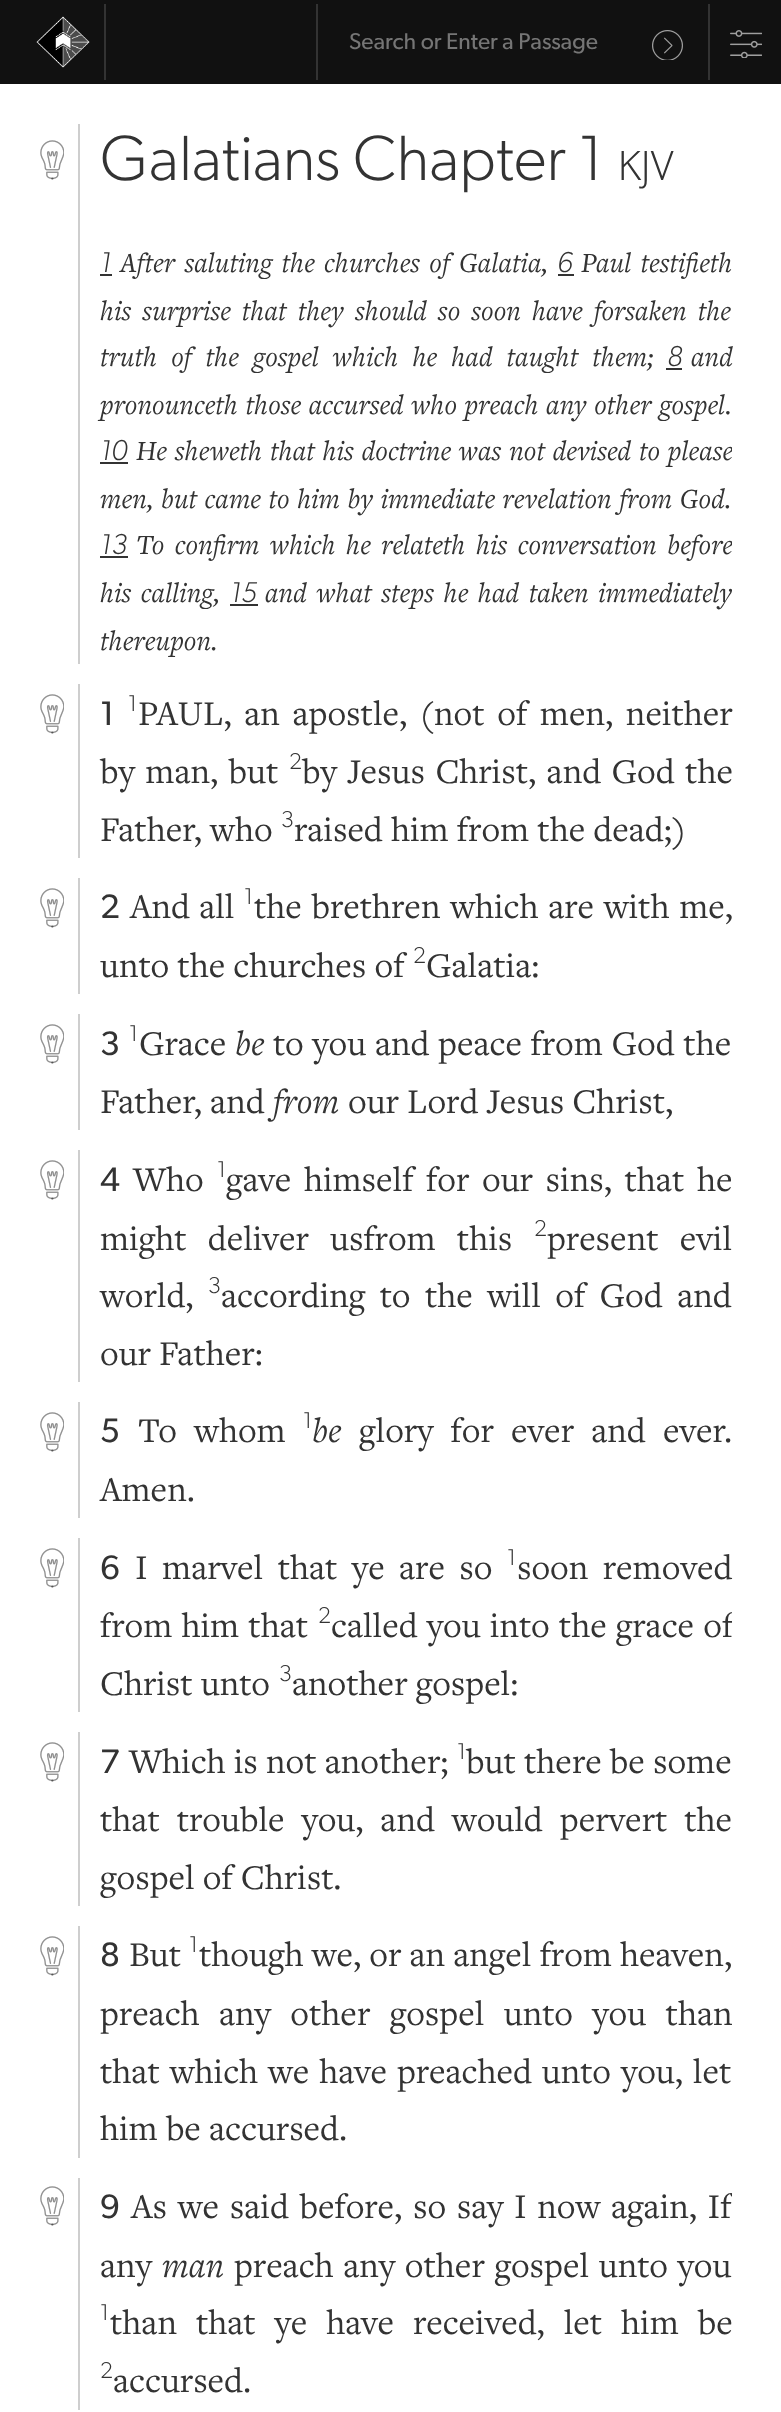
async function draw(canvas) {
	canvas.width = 781;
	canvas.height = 2412;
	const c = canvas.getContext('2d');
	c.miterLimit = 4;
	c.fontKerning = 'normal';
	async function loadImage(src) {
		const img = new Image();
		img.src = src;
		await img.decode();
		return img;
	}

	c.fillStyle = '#fff';
	c.fillRect(0, 0, 781, 2412);
	c.fillStyle = '#111';
	c.fillRect(0, 0, 781, 84);
	c.fillStyle = '#333';
	c.fillRect(104, 4, 2, 76);
	c.drawImage(await loadImage('img1.png'), 36, 16, 54, 52);
	c.fillRect(316, 4, 2, 76);
	c.font = '23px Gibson';
	c.fillStyle = '#757575';
	c.fillText('Search or Enter a Passage', 349, 49);
	c.drawImage(await loadImage('img2.png'), 652, 30, 31, 30);
	c.fillStyle = '#333';
	c.fillRect(708, 4, 2, 76);
	c.drawImage(await loadImage('img3.png'), 730, 30, 32, 28);
	c.drawImage(await loadImage('img4.png'), 40, 140, 24, 40);
	c.fillStyle = '#cecece';
	c.fillRect(78, 124, 2, 540);
	c.font = '300 64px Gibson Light';
	c.fillStyle = '#333';
	c.fillText('Galatians Chapter 1', 100, 180);
	c.font = '300 42px Gibson Light';
	c.fillText('KJV', 618, 180);
	c.font = 'italic 300 28.8px Gibson Light';
	c.fillText('1', 100, 272);
	c.fillRect(100, 274, 12, 2);
	c.wordSpacing = '2.75px';
	c.font = 'italic 28.8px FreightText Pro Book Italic';
	c.fillText('After saluting the churches of Galatia,', 120, 272);
	c.wordSpacing = '0px';
	c.font = 'italic 300 28.8px Gibson Light';
	c.fillText('6', 557, 272);
	c.fillRect(558, 274, 16, 2);
	c.wordSpacing = '2.75px';
	c.font = 'italic 28.8px FreightText Pro Book Italic';
	c.fillText('Paul testifieth', 581, 272);
	c.save();
	c.beginPath();
	c.rect(80, 124, 652, 540);
	c.clip();
	c.wordSpacing = '4.5px';
	c.fillText('his surprise that they should so soon have forsaken the', 100, 320);
	c.restore();
	c.wordSpacing = '7.5px';
	c.fillText('truth of the gospel which he had taught them;', 100, 366);
	c.wordSpacing = '0px';
	c.font = 'italic 300 28.8px Gibson Light';
	c.fillText('8', 667, 366);
	c.fillRect(666, 368, 16, 2);
	c.font = 'italic 28.8px FreightText Pro Book Italic';
	c.fillText('and', 691, 366);
	c.wordSpacing = '1px';
	c.fillText('pronounceth those accursed who preach any other gospel.', 100, 414);
	c.wordSpacing = '0px';
	c.font = 'italic 300 28.8px Gibson Light';
	c.fillText('10', 100, 460);
	c.fillRect(100, 462, 28, 2);
	c.save();
	c.beginPath();
	c.rect(80, 124, 652, 540);
	c.clip();
	c.wordSpacing = '1.25px';
	c.font = 'italic 28.8px FreightText Pro Book Italic';
	c.fillText('He sheweth that his doctrine was not devised to please', 136, 460);
	c.restore();
	c.wordSpacing = '1px';
	c.font = 'italic 28.8px FreightText Pro Book Italic';
	c.fillText('men, but came to him by immediate revelation from God.', 100, 508);
	c.wordSpacing = '0px';
	c.font = 'italic 300 28.8px Gibson Light';
	c.fillText('13', 100, 554);
	c.fillRect(100, 556, 28, 2);
	c.save();
	c.beginPath();
	c.rect(80, 124, 652, 540);
	c.clip();
	c.wordSpacing = '4px';
	c.font = 'italic 28.8px FreightText Pro Book Italic';
	c.fillText('To confirm which he relateth his conversation before', 136, 554);
	c.restore();
	c.wordSpacing = '3px';
	c.font = 'italic 28.8px FreightText Pro Book Italic';
	c.fillText('his calling,', 100, 602);
	c.wordSpacing = '0px';
	c.font = 'italic 300 28.8px Gibson Light';
	c.fillText('15', 230, 602);
	c.fillRect(230, 604, 28, 2);
	c.save();
	c.beginPath();
	c.rect(80, 124, 652, 540);
	c.clip();
	c.wordSpacing = '3px';
	c.font = 'italic 28.8px FreightText Pro Book Italic';
	c.fillText('and what steps he had taken immediately', 265, 602);
	c.restore();
	c.font = 'italic 28.8px FreightText Pro Book Italic';
	c.fillText('thereupon.', 100, 650);
	c.drawImage(await loadImage('img4.png'), 40, 694, 24, 40);
	c.fillStyle = '#cecece';
	c.fillRect(78, 684, 2, 174);
	c.font = '34px Gibson';
	c.fillStyle = '#333';
	c.fillText('1', 100, 725);
	c.font = '300 23px Gibson Light';
	c.fillText('1', 128, 711);
	c.wordSpacing = '4.5px';
	c.font = '36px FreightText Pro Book';
	c.fillText('PAUL, an apostle, (not of men, neither', 138, 725);
	c.wordSpacing = '2.25px';
	c.fillText('by man, but', 100, 783);
	c.wordSpacing = '0px';
	c.font = '300 23px Gibson Light';
	c.fillText('2', 289, 769);
	c.wordSpacing = '2.25px';
	c.font = '36px FreightText Pro Book';
	c.fillText('by Jesus Christ, and God the', 302, 783);
	c.wordSpacing = '0px';
	c.fillText('Father, who', 100, 841);
	c.font = '300 23px Gibson Light';
	c.fillText('3', 281, 827);
	c.font = '36px FreightText Pro Book';
	c.fillText('raised him from the dead;)', 294, 841);
	c.drawImage(await loadImage('img4.png'), 40, 888, 24, 40);
	c.fillStyle = '#cecece';
	c.fillRect(78, 878, 2, 116);
	c.font = '34px Gibson';
	c.fillStyle = '#333';
	c.fillText('2', 100, 918);
	c.wordSpacing = '1px';
	c.font = '36px FreightText Pro Book';
	c.fillText('And all', 130, 918);
	c.wordSpacing = '0px';
	c.font = '300 23px Gibson Light';
	c.fillText('1', 244, 904);
	c.wordSpacing = '1.5px';
	c.font = '36px FreightText Pro Book';
	c.fillText('the brethren which are with me,', 254, 918);
	c.wordSpacing = '0px';
	c.fillText('unto the churches of', 100, 977);
	c.font = '300 23px Gibson Light';
	c.fillText('2', 413, 963);
	c.font = '36px FreightText Pro Book';
	c.fillText('Galatia:', 426, 977);
	c.drawImage(await loadImage('img4.png'), 40, 1024, 24, 40);
	c.fillStyle = '#cecece';
	c.fillRect(78, 1014, 2, 116);
	c.font = '34px Gibson';
	c.fillStyle = '#333';
	c.fillText('3', 100, 1055);
	c.font = '300 23px Gibson Light';
	c.fillText('1', 129, 1041);
	c.font = '36px FreightText Pro Book';
	c.fillText('Grace', 139, 1055);
	c.font = 'italic 36px FreightText Pro Book Italic';
	c.fillText('be', 235, 1055);
	c.wordSpacing = '0.5px';
	c.font = '36px FreightText Pro Book';
	c.fillText('to you and peace from God the', 273, 1055);
	c.wordSpacing = '0px';
	c.fillText('Father, and', 100, 1113);
	c.font = 'italic 36px FreightText Pro Book Italic';
	c.fillText('from', 273, 1113);
	c.font = '36px FreightText Pro Book';
	c.fillText('our Lord Jesus Christ,', 348, 1113);
	c.drawImage(await loadImage('img4.png'), 40, 1160, 24, 40);
	c.fillStyle = '#cecece';
	c.fillRect(78, 1150, 2, 232);
	c.font = '34px Gibson';
	c.fillStyle = '#333';
	c.fillText('4', 100, 1191);
	c.font = '36px FreightText Pro Book';
	c.fillText('Who', 133, 1191);
	c.font = '300 23px Gibson Light';
	c.fillText('1', 217, 1177);
	c.wordSpacing = '4.5px';
	c.font = '36px FreightText Pro Book';
	c.fillText('gave himself for our sins, that he', 226, 1191);
	c.wordSpacing = '13px';
	c.fillText('might deliver usfrom this', 100, 1250);
	c.wordSpacing = '0px';
	c.font = '300 23px Gibson Light';
	c.fillText('2', 534, 1236);
	c.wordSpacing = '13px';
	c.font = '36px FreightText Pro Book';
	c.fillText('present evil', 547, 1250);
	c.wordSpacing = '0px';
	c.fillText('world,', 100, 1307);
	c.font = '300 23px Gibson Light';
	c.fillText('3', 208, 1293);
	c.wordSpacing = '6.25px';
	c.font = '36px FreightText Pro Book';
	c.fillText('according to the will of God and', 221, 1307);
	c.wordSpacing = '0px';
	c.fillText('our Father:', 100, 1365);
	c.drawImage(await loadImage('img4.png'), 40, 1412, 24, 40);
	c.fillStyle = '#cecece';
	c.fillRect(78, 1402, 2, 116);
	c.font = '34px Gibson';
	c.fillStyle = '#333';
	c.fillText('5', 100, 1442);
	c.wordSpacing = '9px';
	c.font = '36px FreightText Pro Book';
	c.fillText('To whom', 138, 1442);
	c.wordSpacing = '0px';
	c.font = '300 23px Gibson Light';
	c.fillText('1', 303, 1428);
	c.font = 'italic 36px FreightText Pro Book Italic';
	c.fillText('be', 312, 1442);
	c.wordSpacing = '9px';
	c.font = '36px FreightText Pro Book';
	c.fillText('glory for ever and ever.', 359, 1442);
	c.wordSpacing = '0px';
	c.fillText('Amen.', 100, 1501);
	c.drawImage(await loadImage('img4.png'), 40, 1548, 24, 40);
	c.fillStyle = '#cecece';
	c.fillRect(78, 1538, 2, 174);
	c.font = '34px Gibson';
	c.fillStyle = '#333';
	c.fillText('6', 100, 1579);
	c.wordSpacing = '6.25px';
	c.font = '36px FreightText Pro Book';
	c.fillText('I marvel that ye are so', 135, 1579);
	c.wordSpacing = '0px';
	c.font = '300 23px Gibson Light';
	c.fillText('1', 507, 1565);
	c.wordSpacing = '6.25px';
	c.font = '36px FreightText Pro Book';
	c.fillText('soon removed', 517, 1579);
	c.wordSpacing = '1px';
	c.fillText('from him that', 100, 1637);
	c.wordSpacing = '0px';
	c.font = '300 23px Gibson Light';
	c.fillText('2', 318, 1623);
	c.save();
	c.beginPath();
	c.rect(80, 1538, 652, 174);
	c.clip();
	c.wordSpacing = '1px';
	c.font = '36px FreightText Pro Book';
	c.fillText('called you into the grace of', 331, 1637);
	c.restore();
	c.font = '36px FreightText Pro Book';
	c.fillText('Christ unto', 100, 1695);
	c.font = '300 23px Gibson Light';
	c.fillText('3', 279, 1681);
	c.font = '36px FreightText Pro Book';
	c.fillText('another gospel:', 292, 1695);
	c.drawImage(await loadImage('img4.png'), 40, 1742, 24, 40);
	c.fillStyle = '#cecece';
	c.fillRect(78, 1732, 2, 174);
	c.font = '34px Gibson';
	c.fillStyle = '#333';
	c.fillText('7', 100, 1773);
	c.font = '36px FreightText Pro Book';
	c.fillText('Which is not another;', 129, 1773);
	c.font = '300 23px Gibson Light';
	c.fillText('1', 457, 1759);
	c.font = '36px FreightText Pro Book';
	c.fillText('but there be some', 466, 1773);
	c.wordSpacing = '8.75px';
	c.fillText('that trouble you, and would pervert the', 100, 1831);
	c.wordSpacing = '0px';
	c.fillText('gospel of Christ.', 100, 1889);
	c.drawImage(await loadImage('img4.png'), 40, 1936, 24, 40);
	c.fillStyle = '#cecece';
	c.fillRect(78, 1926, 2, 232);
	c.font = '34px Gibson';
	c.fillStyle = '#333';
	c.fillText('8', 100, 1966);
	c.font = '36px FreightText Pro Book';
	c.fillText('But', 129, 1966);
	c.font = '300 23px Gibson Light';
	c.fillText('1', 189, 1952);
	c.font = '36px FreightText Pro Book';
	c.fillText('though we, or an angel from heaven,', 199, 1966);
	c.wordSpacing = '11.25px';
	c.fillText('preach any other gospel unto you than', 100, 2025);
	c.wordSpacing = '1.75px';
	c.fillText('that which we have preached unto you, let', 100, 2083);
	c.wordSpacing = '0px';
	c.fillText('him be accursed.', 100, 2140);
	c.drawImage(await loadImage('img4.png'), 40, 2186, 24, 40);
	c.fillStyle = '#cecece';
	c.fillRect(78, 2178, 2, 232);
	c.font = '34px Gibson';
	c.fillStyle = '#333';
	c.fillText('9', 100, 2218);
	c.save();
	c.beginPath();
	c.rect(80, 2178, 652, 232);
	c.clip();
	c.wordSpacing = '2.5px';
	c.font = '36px FreightText Pro Book';
	c.fillText('As we said before, so say I now again, If', 131, 2218);
	c.restore();
	c.font = '36px FreightText Pro Book';
	c.fillText('any', 100, 2277);
	c.font = 'italic 36px FreightText Pro Book Italic';
	c.fillText('man', 162, 2277);
	c.wordSpacing = '1.5px';
	c.font = '36px FreightText Pro Book';
	c.fillText('preach any other gospel unto you', 234, 2277);
	c.wordSpacing = '0px';
	c.font = '300 23px Gibson Light';
	c.fillText('1', 100, 2320);
	c.wordSpacing = '10.75px';
	c.font = '36px FreightText Pro Book';
	c.fillText('than that ye have received, let him be', 110, 2334);
	c.wordSpacing = '0px';
	c.font = '300 23px Gibson Light';
	c.fillText('2', 100, 2378);
	c.font = '36px FreightText Pro Book';
	c.fillText('accursed.', 113, 2392);
}

draw(document.querySelector('canvas'));
